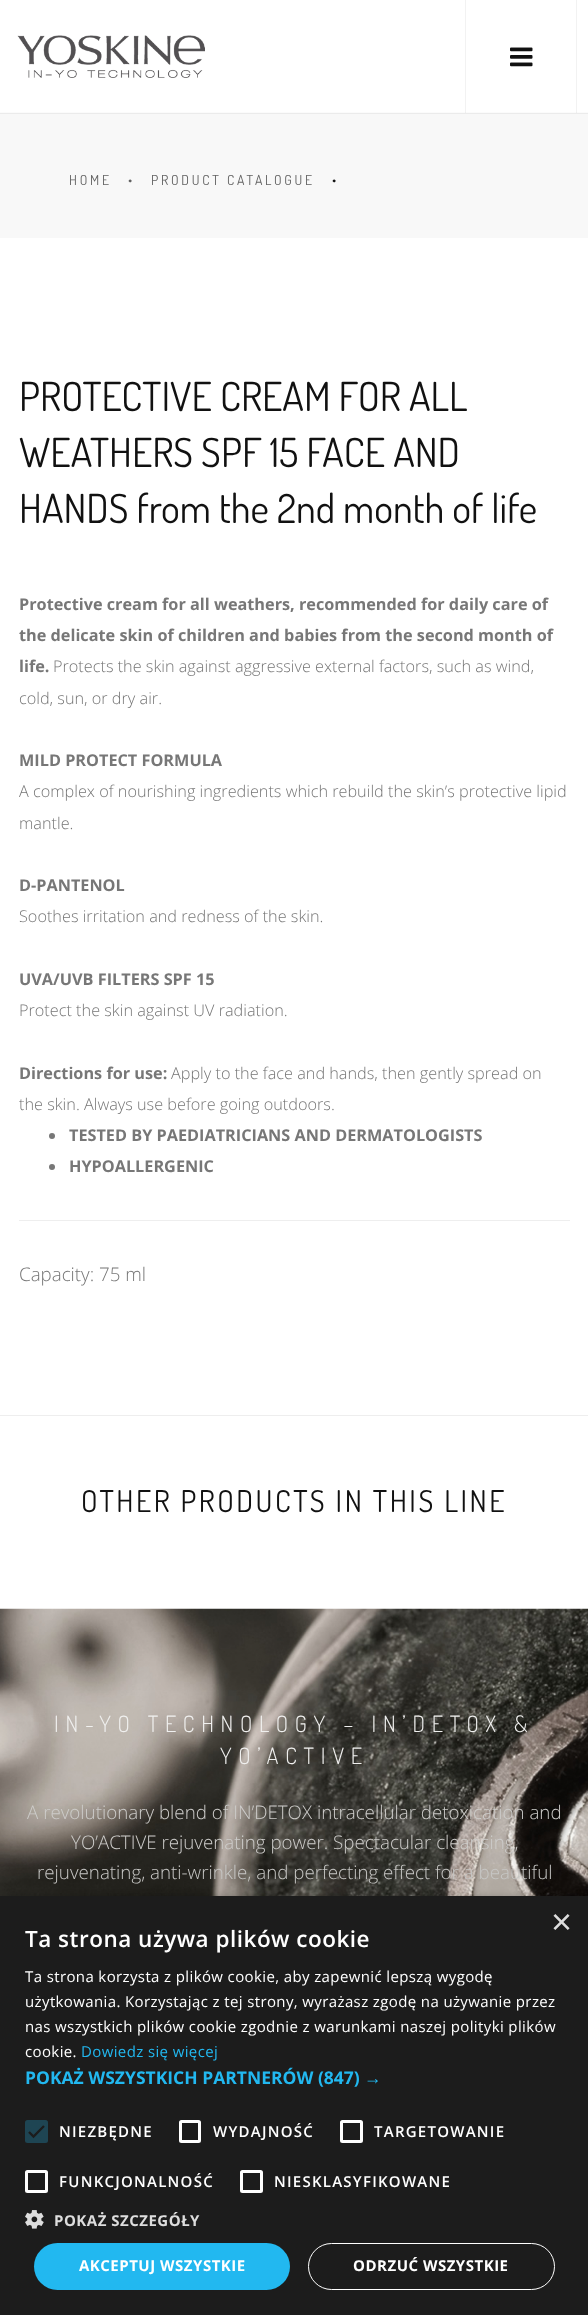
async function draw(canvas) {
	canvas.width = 588;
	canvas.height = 2315;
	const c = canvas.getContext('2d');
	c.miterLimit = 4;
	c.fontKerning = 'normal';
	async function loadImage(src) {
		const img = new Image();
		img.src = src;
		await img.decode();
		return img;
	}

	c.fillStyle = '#fff';
	c.fillRect(0, 0, 588, 2315);
	c.fillStyle = '#f8f8f8';
	c.fillRect(0, 113, 588, 125);
	c.fillStyle = '#0000000d';
	c.beginPath();
	c.moveTo(0, 112);
	c.lineTo(0, 114);
	c.lineTo(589, 114);
	c.lineTo(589, 1);
	c.lineTo(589, 112);
	c.closePath();
	c.fill();
	c.fillStyle = '#ffffffb3';
	c.fillRect(0, 112, 588, 1);
	c.drawImage(await loadImage('img1.png'), 17, 35, 188, 43);
	c.fillStyle = '#0000000d';
	c.fillRect(576, 0, 1, 113);
	c.fillRect(465, 0, 1, 113);
	c.drawImage(await loadImage('img2.png'), 510, 47, 23, 20);
	c.letterSpacing = '2.75px';
	c.font = '13.75px Dosis';
	c.fillStyle = '#626262';
	for (const [text, x, y] of [
		['HOME', 69, 185],
		['•', 128, 185],
		['PRODUCT CATALOGUE', 151, 185],
	]) {
		c.fillText(text, x, y);
	}
	c.fillStyle = '#111';
	c.fillText('•', 332, 185);
	c.letterSpacing = '0px';
	c.font = '40px Dosis';
	for (const [text, x, y] of [
		['PROTECTIVE CREAM FOR ALL', 19, 411],
		['WEATHERS SPF 15 FACE AND', 19, 467],
		['HANDS from the 2nd month of life', 19, 523],
	]) {
		c.fillText(text, x, y);
	}
	c.font = 'bold 16.25px Open Sans';
	c.fillStyle = '#777';
	for (const [text, x, y] of [
		['Protective cream for all weathers, recommended for daily care of', 19, 610],
		['the delicate skin of children and babies from the second month of', 19, 641],
		['life.', 19, 672],
	]) {
		c.fillText(text, x, y);
	}
	c.font = '300 16.25px Open Sans';
	c.fillText('Protects the skin against aggressive external factors, such as wind,', 53, 672);
	c.fillText('cold, sun, or dry air.', 19, 704);
	c.font = 'bold 16.25px Open Sans';
	c.fillText('MILD PROTECT FORMULA', 19, 766);
	c.font = '300 16.25px Open Sans';
	c.fillText('A complex of nourishing ingredients which rebuild the skin’s protective lipid', 19, 797);
	c.fillText('mantle.', 19, 829);
	c.font = 'bold 16.25px Open Sans';
	c.fillText('D-PANTENOL', 19, 891);
	c.font = '300 16.25px Open Sans';
	c.fillText('Soothes irritation and redness of the skin.', 19, 922);
	c.font = 'bold 16.25px Open Sans';
	c.fillText('UVA/UVB FILTERS SPF 15', 19, 985);
	c.font = '300 16.25px Open Sans';
	c.fillText('Protect the skin against UV radiation.', 19, 1016);
	c.font = 'bold 16.25px Open Sans';
	c.fillText('Directions for use:', 19, 1079);
	c.font = '300 16.25px Open Sans';
	c.fillText('Apply to the face and hands, then gently spread on', 171, 1079);
	c.fillText('the skin. Always use before going outdoors.', 19, 1110);
	c.beginPath();
	c.arc(52, 1136, 3, 0, 2 * Math.PI);
	c.fill();
	c.font = 'bold 16.25px Open Sans';
	c.fillText('TESTED BY PAEDIATRICIANS AND DERMATOLOGISTS', 69, 1141);
	c.beginPath();
	c.arc(52, 1167, 3, 0, 2 * Math.PI);
	c.fill();
	c.fillText('HYPOALLERGENIC', 69, 1172);
	c.fillStyle = '#eee';
	c.fillRect(19, 1220, 551, 1);
	c.font = '300 18.75px Open Sans';
	c.fillStyle = '#777';
	c.fillText('Capacity: 75 ml', 19, 1281);
	c.fillStyle = '#eee';
	c.fillRect(0, 1415, 588, 1);
	c.letterSpacing = '2.5px';
	c.font = '30px Dosis';
	c.fillStyle = '#111';
	c.fillText('OTHER PRODUCTS IN THIS LINE', 81, 1512);
	c.drawImage(await loadImage('img3.png'), 0, 1608, 588, 288);
	c.letterSpacing = '6.75px';
	c.font = '300 22.5px Dosis';
	c.fillStyle = '#f0f0ef';
	c.fillText('IN-YO TECHNOLOGY – IN’DETOX &', 54, 1732);
	c.fillText('YO’ACTIVE', 220, 1764);
	c.letterSpacing = '0px';
	c.font = '300 18.75px Open Sans';
	c.fillStyle = '#cdccca';
	c.fillText('A revolutionary blend of IN’DETOX intracellular detoxication and', 27, 1819);
	c.fillText('YO’ACTIVE rejuvenating power. Spectacular cleansing,', 71, 1849);
	c.fillStyle = '#c6c6c4';
	c.fillText('rejuvenating, anti-wrinkle, and perfecting effect for a beautiful', 37, 1879);
	c.fillStyle = '#00000059';
	c.filter = 'blur(5px)';
	c.beginPath();
	c.rect(1, 1899, 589, 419);
	c.fill();
	c.filter = 'none';
	c.fillStyle = '#1c1c1c';
	c.fillRect(0, 1896, 588, 419);
	c.font = '36px Liberation Sans';
	c.fillStyle = '#ddd';
	c.fillText('×', 551, 1934);
	c.letterSpacing = '0.5px';
	c.font = '600 22.5px Open Sans';
	c.fillStyle = '#fff';
	c.fillText('Ta strona używa plików cookie', 25, 1947);
	c.letterSpacing = '0.38px';
	c.font = '15px Open Sans';
	for (const [text, x, y] of [
		['Ta strona korzysta z plików cookie, aby zapewnić lepszą wygodę', 25, 1982],
		['użytkowania. Korzystając z tej strony, wyrażasz zgodę na używanie przez', 25, 2007],
		['nas wszystkich plików cookie zgodnie z warunkami naszej polityki plików', 25, 2032],
		['cookie.', 25, 2057],
	]) {
		c.fillText(text, x, y);
	}
	c.fillStyle = '#22b8f0';
	c.fillText('Dowiedz się więcej', 81, 2057);
	c.letterSpacing = '0px';
	c.font = 'bold 17.5px Open Sans';
	c.fillText('POKAŻ WSZYSTKICH PARTNERÓW (847)', 25, 2084);
	c.font = 'bold 17.5px Liberation Sans';
	c.fillText('→', 364, 2084);
	c.fillStyle = '#1e4553';
	c.beginPath();
	c.roundRect(25, 2120, 23, 23, 2.5);
	c.fill();
	c.beginPath();
	c.moveTo(29, 2132);
	c.lineTo(33.5, 2136.5);
	c.lineTo(44, 2126);
	c.strokeStyle = '#1c1c1c';
	c.lineWidth = 2.3;
	c.stroke();
	c.letterSpacing = '1.25px';
	c.font = '600 15px Open Sans';
	c.fillStyle = '#fff';
	c.fillText('NIEZBĘDNE', 59, 2137);
	c.beginPath();
	c.roundRect(180.5, 2121.5, 19, 20, 1);
	c.strokeStyle = '#fff';
	c.lineWidth = 3;
	c.stroke();
	c.fillText('WYDAJNOŚĆ', 213, 2137);
	c.beginPath();
	c.roundRect(341.5, 2121.5, 20, 20, 1);
	c.stroke();
	c.fillText('TARGETOWANIE', 374, 2137);
	c.beginPath();
	c.roundRect(26.5, 2171.5, 20, 20, 1);
	c.stroke();
	c.fillText('FUNKCJONALNOŚĆ', 59, 2187);
	c.beginPath();
	c.roundRect(241.5, 2171.5, 20, 20, 1);
	c.stroke();
	c.fillText('NIESKLASYFIKOWANE', 274, 2187);
	c.drawImage(await loadImage('img4.png'), 25, 2210, 19, 19);
	c.letterSpacing = '0.5px';
	c.font = 'bold 15px Open Sans';
	c.fillStyle = '#ddd';
	c.fillText('POKAŻ SZCZEGÓŁY', 54, 2226);
	c.fillStyle = '#22b8f0';
	c.beginPath();
	c.roundRect(34, 2243, 256, 47, 23.5);
	c.fill();
	c.fillStyle = '#fff';
	c.fillText('AKCEPTUJ WSZYSTKIE', 79, 2271);
	c.beginPath();
	c.roundRect(308.5, 2243.5, 246, 46, 23);
	c.lineWidth = 1;
	c.stroke();
	c.fillText('ODRZUĆ WSZYSTKIE', 353, 2271);
}

draw(document.querySelector('canvas'));
